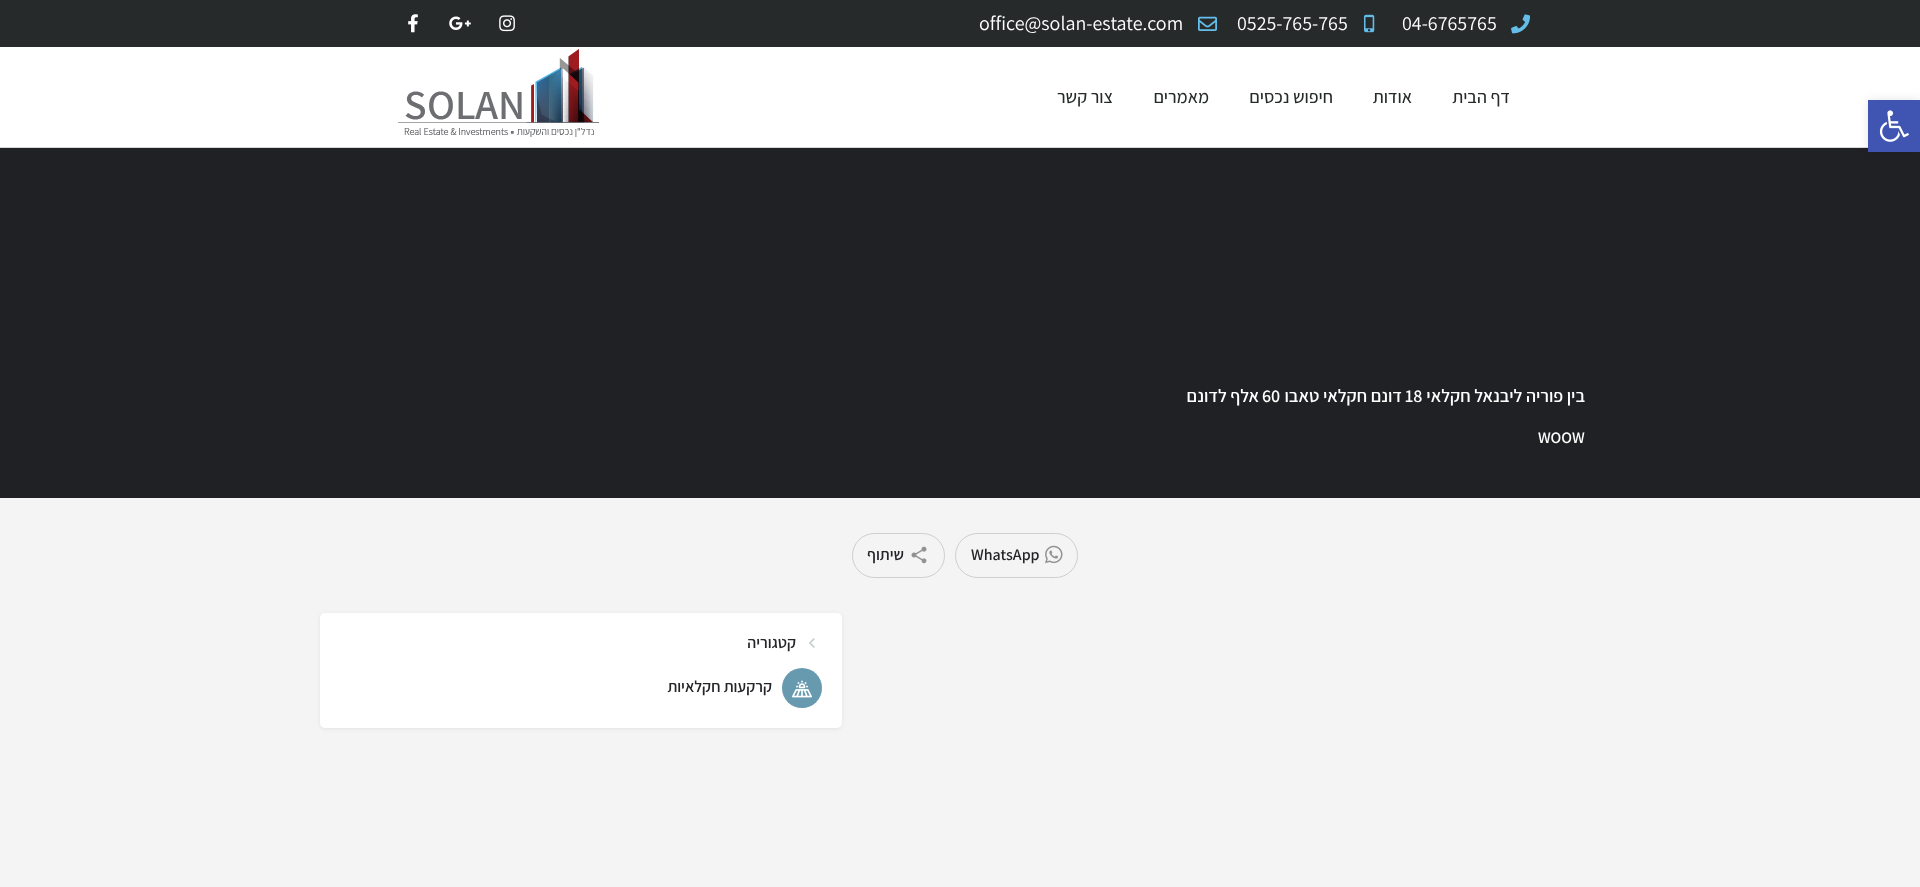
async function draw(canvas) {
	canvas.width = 1920;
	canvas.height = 887;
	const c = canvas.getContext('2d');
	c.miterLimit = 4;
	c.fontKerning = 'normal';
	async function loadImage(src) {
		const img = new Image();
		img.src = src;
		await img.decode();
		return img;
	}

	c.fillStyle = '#f4f4f4';
	c.fillRect(0, 0, 1920, 887);
	for (const [x, y, w, h, color] of [
		[0, 47, 1920, 100, '#fff'],
		[0, 147, 1868, 1, '#d8d8d8'],
		[0, 148, 1920, 350, '#202125'],
	]) {
		c.fillStyle = color;
		c.fillRect(x, y, w, h);
	}
	c.fillStyle = '#0000001a';
	c.filter = 'blur(5px)';
	c.beginPath();
	c.rect(1868, 100, 52, 52);
	c.fill();
	c.filter = 'none';
	c.fillStyle = '#4054b2';
	c.fillRect(1868, 100, 52, 52);
	c.drawImage(await loadImage('img1.png'), 1879, 110, 30, 32);
	c.fillStyle = '#262a2b';
	c.fillRect(0, 0, 1920, 47);
	c.drawImage(await loadImage('img2.png'), 1511, 14, 19, 20);
	c.font = '20px Assistant';
	c.fillStyle = '#fff';
	c.fillText('04-6765765', 1402, 30);
	c.drawImage(await loadImage('img3.png'), 1363, 14, 12, 19);
	c.fillText('0525-765-765', 1237, 30);
	c.drawImage(await loadImage('img4.png'), 1198, 16, 19, 15);
	c.fillText('office@solan-estate.com', 979, 30);
	c.drawImage(await loadImage('img5.png'), 499, 15, 16, 17);
	c.drawImage(await loadImage('img6.png'), 449, 16, 22, 14);
	c.drawImage(await loadImage('img7.png'), 408, 14, 10, 19);
	c.direction = 'rtl';
	c.font = '500 18px Assistant';
	c.fillStyle = '#262a2b';
	for (const [text, x, y] of [
		['דף הבית', 1510, 103],
		['אודות', 1412, 103],
		['חיפוש נכסים', 1333, 103],
		['מאמרים', 1209, 103],
		['צור קשר', 1113, 103],
	]) {
		c.fillText(text, x, y);
	}
	c.drawImage(await loadImage('img8.png'), 398, 49, 201, 88);
	c.font = '600 18px Assistant';
	c.fillStyle = '#fff';
	c.fillText('בין פוריה ליבנאל חקלאי', 1585, 402);
	c.direction = 'ltr';
	c.fillText('18', 1405, 402);
	c.direction = 'rtl';
	c.fillText('דונם חקלאי טאבו', 1402, 402);
	c.direction = 'ltr';
	c.fillText('60', 1262, 402);
	c.direction = 'rtl';
	c.fillText('אלף לדונם', 1259, 402);
	c.direction = 'ltr';
	c.font = '600 16px Assistant';
	c.fillText('WOOW', 1538, 443);
	c.beginPath();
	c.roundRect(955.5, 533.5, 122, 44, 22);
	c.strokeStyle = '#cfcfcf';
	c.stroke();
	c.drawImage(await loadImage('img9.png'), 1045, 545, 18, 19);
	c.fillStyle = '#242429';
	c.fillText('WhatsApp', 971, 560);
	c.beginPath();
	c.roundRect(852.5, 533.5, 92, 44, 22);
	c.stroke();
	c.drawImage(await loadImage('img10.png'), 911, 546, 16, 18);
	c.direction = 'rtl';
	c.fillText('שיתוף', 904, 560);
	c.fillStyle = '#00000012';
	c.filter = 'blur(2px)';
	c.beginPath();
	c.roundRect(320, 614, 522, 115, 5);
	c.fill();
	c.filter = 'none';
	c.fillStyle = '#fff';
	c.beginPath();
	c.roundRect(320, 613, 522, 115, 5);
	c.fill();
	c.drawImage(await loadImage('img11.png'), 809, 638, 6, 10);
	c.fillStyle = '#242429';
	c.fillText('קטגוריה', 796, 648);
	c.fillStyle = '#6799af';
	c.beginPath();
	c.arc(802, 688, 20, 0, 2 * Math.PI);
	c.fill();
	c.drawImage(await loadImage('img12.png'), 792, 680, 20, 18);
	c.fillStyle = '#242429';
	c.fillText('קרקעות חקלאיות', 772, 692);
}

draw(document.querySelector('canvas'));
